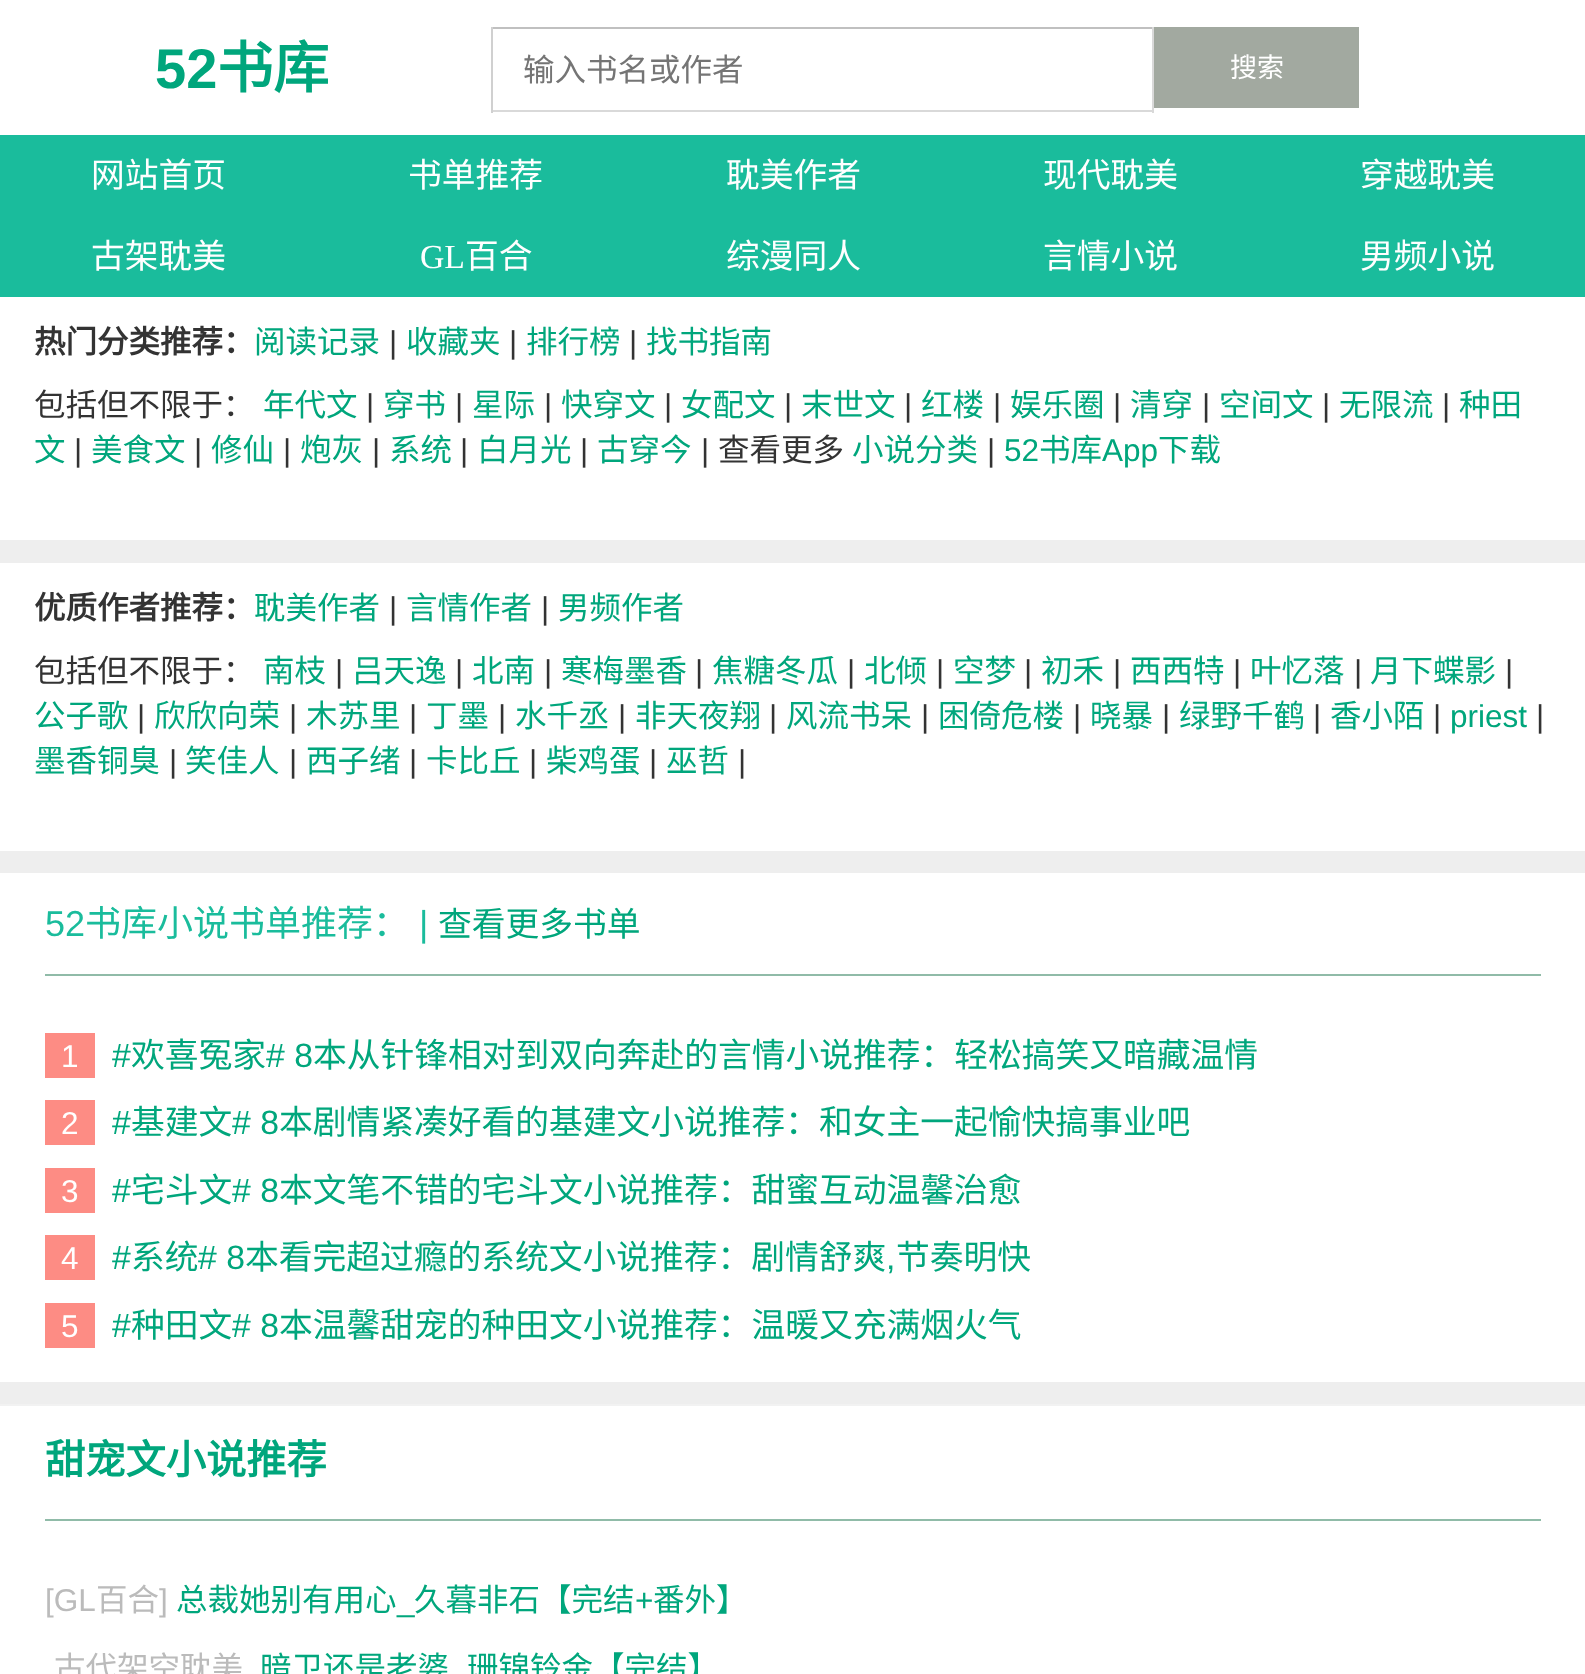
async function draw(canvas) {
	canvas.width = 1585;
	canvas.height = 1674;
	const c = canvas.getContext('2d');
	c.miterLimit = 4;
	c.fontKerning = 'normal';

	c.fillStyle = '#eee';
	c.fillRect(0, 0, 1585, 1674);
	c.fillStyle = '#fff';
	c.fillRect(0, 0, 1585, 135);
	c.font = 'bold 56px Liberation Sans';
	c.fillStyle = '#00a67c';
	c.fillText('52', 155, 88);
	c.font = 'bold 56px Noto Sans CJK SC';
	c.fillText('书库', 217, 88);
	for (const [x, y, w, h, color] of [
		[491, 27, 663, 2, '#c0c0c0'],
		[1152, 27, 2, 86, '#d9d9d9'],
		[491, 110, 663, 2, '#d9d9d9'],
		[491, 27, 2, 86, '#d0d0d0'],
	]) {
		c.fillStyle = color;
		c.fillRect(x, y, w, h);
	}
	c.font = '31.5px Noto Sans CJK SC';
	c.fillStyle = '#757575';
	c.fillText('输入书名或作者', 523, 81);
	c.fillStyle = '#a2a9a0';
	c.fillRect(1154, 27, 205, 81);
	c.font = '27px Noto Sans CJK SC';
	c.fillStyle = '#fff';
	c.fillText('搜索', 1230, 77);
	c.fillStyle = '#1abc9c';
	c.fillRect(0, 135, 1585, 162);
	c.font = '33.75px Noto Sans CJK SC';
	c.fillStyle = '#fff';
	for (const [text, x, y] of [
		['网站首页', 91, 187],
		['书单推荐', 408, 187],
		['耽美作者', 726, 187],
		['现代耽美', 1043, 187],
		['穿越耽美', 1360, 187],
		['古架耽美', 91, 268],
	]) {
		c.fillText(text, x, y);
	}
	c.font = '33.75px Liberation Serif';
	c.fillText('GL', 420, 268);
	c.font = '33.75px Noto Sans CJK SC';
	for (const [text, x, y] of [
		['百合', 465, 268],
		['综漫同人', 726, 268],
		['言情小说', 1043, 268],
		['男频小说', 1360, 268],
	]) {
		c.fillText(text, x, y);
	}
	c.fillRect(0, 297, 1585, 243);
	c.font = 'bold 31.5px Noto Sans CJK SC';
	c.fillStyle = '#333';
	c.fillText('热门分类推荐：', 34, 353);
	c.font = '31.5px Noto Sans CJK SC';
	c.fillStyle = '#00a67c';
	c.fillText('阅读记录', 254, 353);
	c.font = '31.5px Liberation Sans';
	c.fillStyle = '#333';
	c.fillText('|', 389, 353);
	c.font = '31.5px Noto Sans CJK SC';
	c.fillStyle = '#00a67c';
	c.fillText('收藏夹', 406, 353);
	c.font = '31.5px Liberation Sans';
	c.fillStyle = '#333';
	c.fillText('|', 509, 353);
	c.font = '31.5px Noto Sans CJK SC';
	c.fillStyle = '#00a67c';
	c.fillText('排行榜', 526, 353);
	c.font = '31.5px Liberation Sans';
	c.fillStyle = '#333';
	c.fillText('|', 629, 353);
	c.font = '31.5px Noto Sans CJK SC';
	c.fillStyle = '#00a67c';
	c.fillText('找书指南', 646, 353);
	c.fillStyle = '#333';
	c.fillText('包括但不限于：', 34, 416);
	c.fillStyle = '#00a67c';
	c.fillText('年代文', 263, 416);
	c.font = '31.5px Liberation Sans';
	c.fillStyle = '#333';
	c.fillText('|', 366, 416);
	c.font = '31.5px Noto Sans CJK SC';
	c.fillStyle = '#00a67c';
	c.fillText('穿书', 383, 416);
	c.font = '31.5px Liberation Sans';
	c.fillStyle = '#333';
	c.fillText('|', 455, 416);
	c.font = '31.5px Noto Sans CJK SC';
	c.fillStyle = '#00a67c';
	c.fillText('星际', 472, 416);
	c.font = '31.5px Liberation Sans';
	c.fillStyle = '#333';
	c.fillText('|', 544, 416);
	c.font = '31.5px Noto Sans CJK SC';
	c.fillStyle = '#00a67c';
	c.fillText('快穿文', 561, 416);
	c.font = '31.5px Liberation Sans';
	c.fillStyle = '#333';
	c.fillText('|', 664, 416);
	c.font = '31.5px Noto Sans CJK SC';
	c.fillStyle = '#00a67c';
	c.fillText('女配文', 681, 416);
	c.font = '31.5px Liberation Sans';
	c.fillStyle = '#333';
	c.fillText('|', 784, 416);
	c.font = '31.5px Noto Sans CJK SC';
	c.fillStyle = '#00a67c';
	c.fillText('末世文', 801, 416);
	c.font = '31.5px Liberation Sans';
	c.fillStyle = '#333';
	c.fillText('|', 904, 416);
	c.font = '31.5px Noto Sans CJK SC';
	c.fillStyle = '#00a67c';
	c.fillText('红楼', 921, 416);
	c.font = '31.5px Liberation Sans';
	c.fillStyle = '#333';
	c.fillText('|', 993, 416);
	c.font = '31.5px Noto Sans CJK SC';
	c.fillStyle = '#00a67c';
	c.fillText('娱乐圈', 1010, 416);
	c.font = '31.5px Liberation Sans';
	c.fillStyle = '#333';
	c.fillText('|', 1113, 416);
	c.font = '31.5px Noto Sans CJK SC';
	c.fillStyle = '#00a67c';
	c.fillText('清穿', 1130, 416);
	c.font = '31.5px Liberation Sans';
	c.fillStyle = '#333';
	c.fillText('|', 1202, 416);
	c.font = '31.5px Noto Sans CJK SC';
	c.fillStyle = '#00a67c';
	c.fillText('空间文', 1219, 416);
	c.font = '31.5px Liberation Sans';
	c.fillStyle = '#333';
	c.fillText('|', 1322, 416);
	c.font = '31.5px Noto Sans CJK SC';
	c.fillStyle = '#00a67c';
	c.fillText('无限流', 1339, 416);
	c.font = '31.5px Liberation Sans';
	c.fillStyle = '#333';
	c.fillText('|', 1442, 416);
	c.font = '31.5px Noto Sans CJK SC';
	c.fillStyle = '#00a67c';
	c.fillText('种田', 1459, 416);
	c.fillText('文', 34, 461);
	c.font = '31.5px Liberation Sans';
	c.fillStyle = '#333';
	c.fillText('|', 74, 461);
	c.font = '31.5px Noto Sans CJK SC';
	c.fillStyle = '#00a67c';
	c.fillText('美食文', 91, 461);
	c.font = '31.5px Liberation Sans';
	c.fillStyle = '#333';
	c.fillText('|', 194, 461);
	c.font = '31.5px Noto Sans CJK SC';
	c.fillStyle = '#00a67c';
	c.fillText('修仙', 211, 461);
	c.font = '31.5px Liberation Sans';
	c.fillStyle = '#333';
	c.fillText('|', 283, 461);
	c.font = '31.5px Noto Sans CJK SC';
	c.fillStyle = '#00a67c';
	c.fillText('炮灰', 300, 461);
	c.font = '31.5px Liberation Sans';
	c.fillStyle = '#333';
	c.fillText('|', 372, 461);
	c.font = '31.5px Noto Sans CJK SC';
	c.fillStyle = '#00a67c';
	c.fillText('系统', 389, 461);
	c.font = '31.5px Liberation Sans';
	c.fillStyle = '#333';
	c.fillText('|', 460, 461);
	c.font = '31.5px Noto Sans CJK SC';
	c.fillStyle = '#00a67c';
	c.fillText('白月光', 477, 461);
	c.font = '31.5px Liberation Sans';
	c.fillStyle = '#333';
	c.fillText('|', 580, 461);
	c.font = '31.5px Noto Sans CJK SC';
	c.fillStyle = '#00a67c';
	c.fillText('古穿今', 597, 461);
	c.font = '31.5px Liberation Sans';
	c.fillStyle = '#333';
	c.fillText('|', 701, 461);
	c.font = '31.5px Noto Sans CJK SC';
	c.fillText('查看更多', 718, 461);
	c.fillStyle = '#00a67c';
	c.fillText('小说分类', 852, 461);
	c.font = '31.5px Liberation Sans';
	c.fillStyle = '#333';
	c.fillText('|', 987, 461);
	c.fillStyle = '#00a67c';
	c.fillText('52', 1004, 461);
	c.font = '31.5px Noto Sans CJK SC';
	c.fillText('书库', 1039, 461);
	c.font = '31.5px Liberation Sans';
	c.fillText('App', 1102, 461);
	c.font = '31.5px Noto Sans CJK SC';
	c.fillText('下载', 1158, 461);
	c.fillStyle = '#fff';
	c.fillRect(0, 563, 1585, 288);
	c.font = 'bold 31.5px Noto Sans CJK SC';
	c.fillStyle = '#333';
	c.fillText('优质作者推荐：', 34, 619);
	c.font = '31.5px Noto Sans CJK SC';
	c.fillStyle = '#00a67c';
	c.fillText('耽美作者', 254, 619);
	c.font = '31.5px Liberation Sans';
	c.fillStyle = '#333';
	c.fillText('|', 389, 619);
	c.font = '31.5px Noto Sans CJK SC';
	c.fillStyle = '#00a67c';
	c.fillText('言情作者', 406, 619);
	c.font = '31.5px Liberation Sans';
	c.fillStyle = '#333';
	c.fillText('|', 541, 619);
	c.font = '31.5px Noto Sans CJK SC';
	c.fillStyle = '#00a67c';
	c.fillText('男频作者', 558, 619);
	c.fillStyle = '#333';
	c.fillText('包括但不限于：', 34, 682);
	c.fillStyle = '#00a67c';
	c.fillText('南枝', 263, 682);
	c.font = '31.5px Liberation Sans';
	c.fillStyle = '#333';
	c.fillText('|', 335, 682);
	c.font = '31.5px Noto Sans CJK SC';
	c.fillStyle = '#00a67c';
	c.fillText('吕天逸', 352, 682);
	c.font = '31.5px Liberation Sans';
	c.fillStyle = '#333';
	c.fillText('|', 455, 682);
	c.font = '31.5px Noto Sans CJK SC';
	c.fillStyle = '#00a67c';
	c.fillText('北南', 472, 682);
	c.font = '31.5px Liberation Sans';
	c.fillStyle = '#333';
	c.fillText('|', 544, 682);
	c.font = '31.5px Noto Sans CJK SC';
	c.fillStyle = '#00a67c';
	c.fillText('寒梅墨香', 561, 682);
	c.font = '31.5px Liberation Sans';
	c.fillStyle = '#333';
	c.fillText('|', 695, 682);
	c.font = '31.5px Noto Sans CJK SC';
	c.fillStyle = '#00a67c';
	c.fillText('焦糖冬瓜', 712, 682);
	c.font = '31.5px Liberation Sans';
	c.fillStyle = '#333';
	c.fillText('|', 847, 682);
	c.font = '31.5px Noto Sans CJK SC';
	c.fillStyle = '#00a67c';
	c.fillText('北倾', 864, 682);
	c.font = '31.5px Liberation Sans';
	c.fillStyle = '#333';
	c.fillText('|', 936, 682);
	c.font = '31.5px Noto Sans CJK SC';
	c.fillStyle = '#00a67c';
	c.fillText('空梦', 953, 682);
	c.font = '31.5px Liberation Sans';
	c.fillStyle = '#333';
	c.fillText('|', 1024, 682);
	c.font = '31.5px Noto Sans CJK SC';
	c.fillStyle = '#00a67c';
	c.fillText('初禾', 1041, 682);
	c.font = '31.5px Liberation Sans';
	c.fillStyle = '#333';
	c.fillText('|', 1113, 682);
	c.font = '31.5px Noto Sans CJK SC';
	c.fillStyle = '#00a67c';
	c.fillText('西西特', 1130, 682);
	c.font = '31.5px Liberation Sans';
	c.fillStyle = '#333';
	c.fillText('|', 1233, 682);
	c.font = '31.5px Noto Sans CJK SC';
	c.fillStyle = '#00a67c';
	c.fillText('叶忆落', 1250, 682);
	c.font = '31.5px Liberation Sans';
	c.fillStyle = '#333';
	c.fillText('|', 1354, 682);
	c.font = '31.5px Noto Sans CJK SC';
	c.fillStyle = '#00a67c';
	c.fillText('月下蝶影', 1370, 682);
	c.font = '31.5px Liberation Sans';
	c.fillStyle = '#333';
	c.fillText('|', 1505, 682);
	c.font = '31.5px Noto Sans CJK SC';
	c.fillStyle = '#00a67c';
	c.fillText('公子歌', 34, 727);
	c.font = '31.5px Liberation Sans';
	c.fillStyle = '#333';
	c.fillText('|', 137, 727);
	c.font = '31.5px Noto Sans CJK SC';
	c.fillStyle = '#00a67c';
	c.fillText('欣欣向荣', 154, 727);
	c.font = '31.5px Liberation Sans';
	c.fillStyle = '#333';
	c.fillText('|', 289, 727);
	c.font = '31.5px Noto Sans CJK SC';
	c.fillStyle = '#00a67c';
	c.fillText('木苏里', 306, 727);
	c.font = '31.5px Liberation Sans';
	c.fillStyle = '#333';
	c.fillText('|', 409, 727);
	c.font = '31.5px Noto Sans CJK SC';
	c.fillStyle = '#00a67c';
	c.fillText('丁墨', 426, 727);
	c.font = '31.5px Liberation Sans';
	c.fillStyle = '#333';
	c.fillText('|', 498, 727);
	c.font = '31.5px Noto Sans CJK SC';
	c.fillStyle = '#00a67c';
	c.fillText('水千丞', 515, 727);
	c.font = '31.5px Liberation Sans';
	c.fillStyle = '#333';
	c.fillText('|', 618, 727);
	c.font = '31.5px Noto Sans CJK SC';
	c.fillStyle = '#00a67c';
	c.fillText('非天夜翔', 635, 727);
	c.font = '31.5px Liberation Sans';
	c.fillStyle = '#333';
	c.fillText('|', 769, 727);
	c.font = '31.5px Noto Sans CJK SC';
	c.fillStyle = '#00a67c';
	c.fillText('风流书呆', 786, 727);
	c.font = '31.5px Liberation Sans';
	c.fillStyle = '#333';
	c.fillText('|', 921, 727);
	c.font = '31.5px Noto Sans CJK SC';
	c.fillStyle = '#00a67c';
	c.fillText('困倚危楼', 938, 727);
	c.font = '31.5px Liberation Sans';
	c.fillStyle = '#333';
	c.fillText('|', 1073, 727);
	c.font = '31.5px Noto Sans CJK SC';
	c.fillStyle = '#00a67c';
	c.fillText('晓暴', 1090, 727);
	c.font = '31.5px Liberation Sans';
	c.fillStyle = '#333';
	c.fillText('|', 1162, 727);
	c.font = '31.5px Noto Sans CJK SC';
	c.fillStyle = '#00a67c';
	c.fillText('绿野千鹤', 1179, 727);
	c.font = '31.5px Liberation Sans';
	c.fillStyle = '#333';
	c.fillText('|', 1313, 727);
	c.font = '31.5px Noto Sans CJK SC';
	c.fillStyle = '#00a67c';
	c.fillText('香小陌', 1330, 727);
	c.font = '31.5px Liberation Sans';
	c.fillStyle = '#333';
	c.fillText('|', 1433, 727);
	c.fillStyle = '#00a67c';
	c.fillText('priest', 1450, 727);
	c.fillStyle = '#333';
	c.fillText('|', 1536, 727);
	c.font = '31.5px Noto Sans CJK SC';
	c.fillStyle = '#00a67c';
	c.fillText('墨香铜臭', 34, 772);
	c.font = '31.5px Liberation Sans';
	c.fillStyle = '#333';
	c.fillText('|', 169, 772);
	c.font = '31.5px Noto Sans CJK SC';
	c.fillStyle = '#00a67c';
	c.fillText('笑佳人', 185, 772);
	c.font = '31.5px Liberation Sans';
	c.fillStyle = '#333';
	c.fillText('|', 289, 772);
	c.font = '31.5px Noto Sans CJK SC';
	c.fillStyle = '#00a67c';
	c.fillText('西子绪', 306, 772);
	c.font = '31.5px Liberation Sans';
	c.fillStyle = '#333';
	c.fillText('|', 409, 772);
	c.font = '31.5px Noto Sans CJK SC';
	c.fillStyle = '#00a67c';
	c.fillText('卡比丘', 426, 772);
	c.font = '31.5px Liberation Sans';
	c.fillStyle = '#333';
	c.fillText('|', 529, 772);
	c.font = '31.5px Noto Sans CJK SC';
	c.fillStyle = '#00a67c';
	c.fillText('柴鸡蛋', 546, 772);
	c.font = '31.5px Liberation Sans';
	c.fillStyle = '#333';
	c.fillText('|', 649, 772);
	c.font = '31.5px Noto Sans CJK SC';
	c.fillStyle = '#00a67c';
	c.fillText('巫哲', 666, 772);
	c.font = '31.5px Liberation Sans';
	c.fillStyle = '#333';
	c.fillText('|', 738, 772);
	c.fillStyle = '#fff';
	c.fillRect(0, 873, 1585, 509);
	c.fillStyle = '#90bba8';
	c.fillRect(45, 974, 1496, 2);
	c.font = '36px Liberation Sans';
	c.fillStyle = '#1abc9c';
	c.fillText('52', 45, 936);
	c.font = '36px Noto Sans CJK SC';
	c.fillText('书库小说书单推荐：', 85, 936);
	c.font = '36px Liberation Sans';
	c.fillText('|', 419, 936);
	c.font = '33.75px Noto Sans CJK SC';
	c.fillStyle = '#00a67c';
	c.fillText('查看更多书单', 438, 936);
	c.fillStyle = '#fd8c84';
	c.fillRect(45, 1033, 50, 45);
	c.font = '31.5px Liberation Sans';
	c.fillStyle = '#fff';
	c.fillText('1', 61, 1067);
	c.font = '33.75px Liberation Sans';
	c.fillStyle = '#00a67c';
	c.fillText('#', 112, 1067);
	c.font = '33.75px Noto Sans CJK SC';
	c.fillText('欢喜冤家', 131, 1067);
	c.font = '33.75px Liberation Sans';
	c.fillText('# 8', 266, 1067);
	c.font = '33.75px Noto Sans CJK SC';
	c.fillText('本从针锋相对到双向奔赴的言情小说推荐：轻松搞笑又暗藏温情', 313, 1067);
	c.fillStyle = '#fd8c84';
	c.fillRect(45, 1100, 50, 45);
	c.font = '31.5px Liberation Sans';
	c.fillStyle = '#fff';
	c.fillText('2', 61, 1134);
	c.font = '33.75px Liberation Sans';
	c.fillStyle = '#00a67c';
	c.fillText('#', 112, 1134);
	c.font = '33.75px Noto Sans CJK SC';
	c.fillText('基建文', 131, 1134);
	c.font = '33.75px Liberation Sans';
	c.fillText('# 8', 232, 1134);
	c.font = '33.75px Noto Sans CJK SC';
	c.fillText('本剧情紧凑好看的基建文小说推荐：和女主一起愉快搞事业吧', 279, 1134);
	c.fillStyle = '#fd8c84';
	c.fillRect(45, 1168, 50, 45);
	c.font = '31.5px Liberation Sans';
	c.fillStyle = '#fff';
	c.fillText('3', 61, 1202);
	c.font = '33.75px Liberation Sans';
	c.fillStyle = '#00a67c';
	c.fillText('#', 112, 1202);
	c.font = '33.75px Noto Sans CJK SC';
	c.fillText('宅斗文', 131, 1202);
	c.font = '33.75px Liberation Sans';
	c.fillText('# 8', 232, 1202);
	c.font = '33.75px Noto Sans CJK SC';
	c.fillText('本文笔不错的宅斗文小说推荐：甜蜜互动温馨治愈', 279, 1202);
	c.fillStyle = '#fd8c84';
	c.fillRect(45, 1235, 50, 45);
	c.font = '31.5px Liberation Sans';
	c.fillStyle = '#fff';
	c.fillText('4', 61, 1269);
	c.font = '33.75px Liberation Sans';
	c.fillStyle = '#00a67c';
	c.fillText('#', 112, 1269);
	c.font = '33.75px Noto Sans CJK SC';
	c.fillText('系统', 131, 1269);
	c.font = '33.75px Liberation Sans';
	c.fillText('# 8', 198, 1269);
	c.font = '33.75px Noto Sans CJK SC';
	c.fillText('本看完超过瘾的系统文小说推荐：剧情舒爽', 245, 1269);
	c.font = '33.75px Liberation Sans';
	c.fillText(',', 886, 1269);
	c.font = '33.75px Noto Sans CJK SC';
	c.fillText('节奏明快', 896, 1269);
	c.fillStyle = '#fd8c84';
	c.fillRect(45, 1303, 50, 45);
	c.font = '31.5px Liberation Sans';
	c.fillStyle = '#fff';
	c.fillText('5', 61, 1337);
	c.font = '33.75px Liberation Sans';
	c.fillStyle = '#00a67c';
	c.fillText('#', 112, 1337);
	c.font = '33.75px Noto Sans CJK SC';
	c.fillText('种田文', 131, 1337);
	c.font = '33.75px Liberation Sans';
	c.fillText('# 8', 232, 1337);
	c.font = '33.75px Noto Sans CJK SC';
	c.fillText('本温馨甜宠的种田文小说推荐：温暖又充满烟火气', 279, 1337);
	for (const [x, y, w, h, color] of [
		[0, 1406, 1585, 268, '#fff'],
		[0, 1404, 1585, 2, '#f2f2f2'],
		[45, 1519, 1496, 2, '#90bba8'],
	]) {
		c.fillStyle = color;
		c.fillRect(x, y, w, h);
	}
	c.font = 'bold 40.25px Noto Sans CJK SC';
	c.fillStyle = '#00a67c';
	c.fillText('甜宠文小说推荐', 45, 1474);
	c.font = '31.5px Liberation Sans';
	c.fillStyle = '#bbb';
	c.fillText('[GL', 45, 1611);
	c.font = '31.5px Noto Sans CJK SC';
	c.fillText('百合', 96, 1611);
	c.font = '31.5px Liberation Sans';
	c.fillText(']', 159, 1611);
	c.font = '31.5px Noto Sans CJK SC';
	c.fillStyle = '#00a67c';
	c.fillText('总裁她别有用心', 176, 1611);
	c.fillText('久暮非石【完结', 414, 1611);
	c.font = '31.5px Liberation Sans';
	c.fillText('+', 635, 1611);
	c.font = '31.5px Noto Sans CJK SC';
	c.fillText('番外】', 653, 1611);
	c.font = '31.5px Liberation Sans';
	c.fillText('_', 397, 1611);
	c.font = '31.5px Noto Sans CJK SC';
	c.fillStyle = '#bbb';
	c.fillText('古代架空耽美', 54, 1679);
	c.fillStyle = '#00a67c';
	c.fillText('暗卫还是老婆', 260, 1679);
	c.fillText('珊锦铃金【完结】', 467, 1679);
}

draw(document.querySelector('canvas'));
